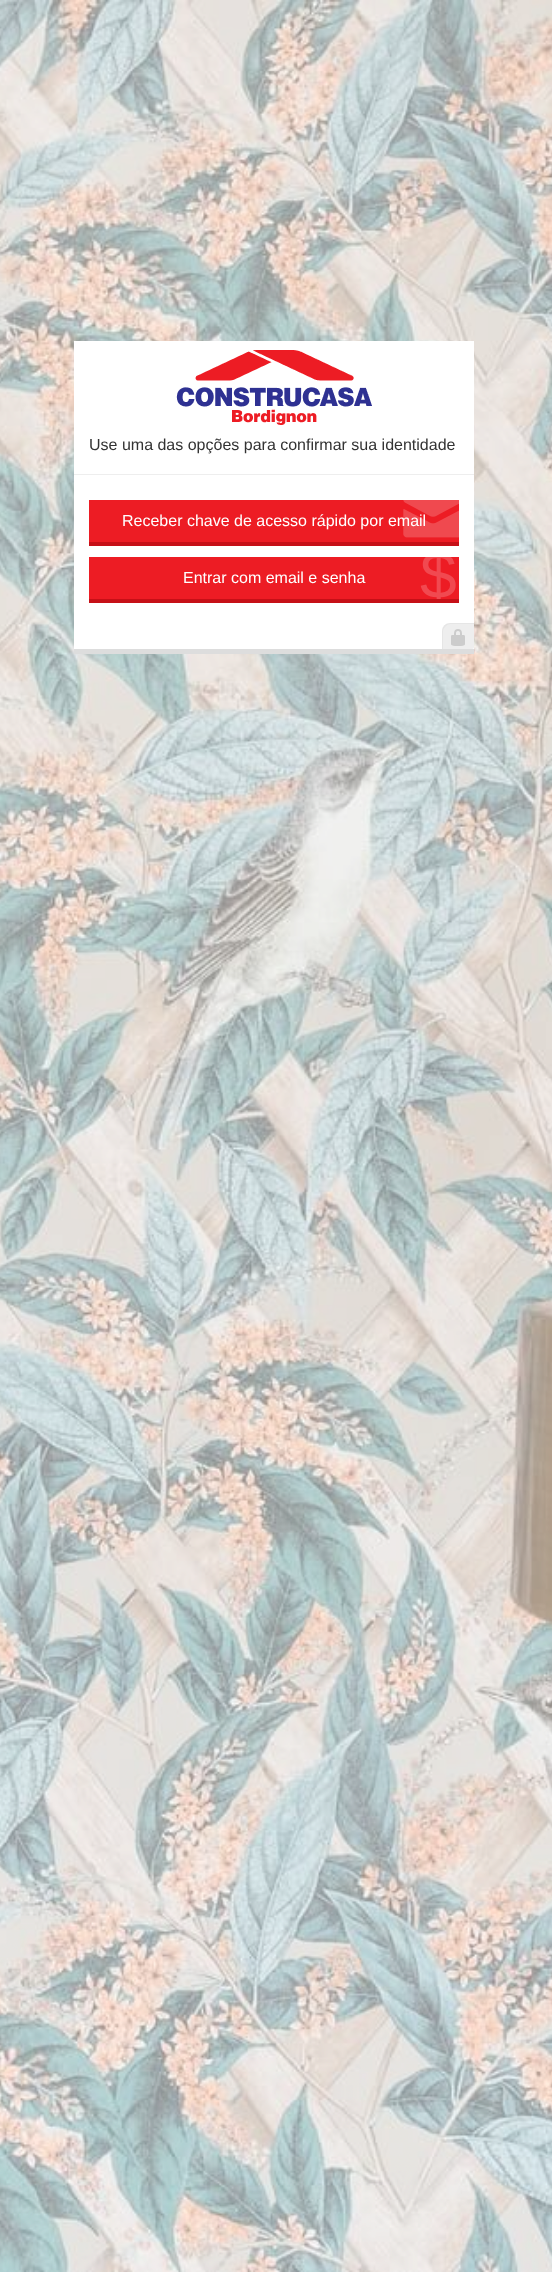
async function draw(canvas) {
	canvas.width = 552;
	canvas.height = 2272;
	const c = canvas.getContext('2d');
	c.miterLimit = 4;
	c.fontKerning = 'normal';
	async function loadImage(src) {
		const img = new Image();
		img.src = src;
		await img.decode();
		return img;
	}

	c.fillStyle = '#fff';
	c.fillRect(0, 0, 552, 2272);
	c.drawImage(await loadImage('img1.png'), 0, 0, 552, 2272);
	for (const [x, y, w, h, color] of [
		[74, 649, 400, 5, '#ddd'],
		[74, 341, 400, 308, '#fff'],
		[74, 474, 400, 1, '#eee'],
	]) {
		c.fillStyle = color;
		c.fillRect(x, y, w, h);
	}
	c.drawImage(await loadImage('img2.png'), 176, 350, 196, 75);
	c.font = '16px Liberation Sans';
	c.fillStyle = '#333';
	c.fillText('Use uma das opções para confirmar sua identidade', 89, 450);
	c.fillStyle = '#c61017';
	c.fillRect(89, 542, 370, 4);
	c.fillStyle = '#ed1c24';
	c.fillRect(89, 500, 370, 42);
	c.fillStyle = '#fff';
	c.fillText('Receber chave de acesso rápido por email', 122, 526);
	c.drawImage(await loadImage('img3.png'), 403, 500, 56, 38);
	c.fillStyle = '#c61017';
	c.fillRect(89, 599, 370, 4);
	c.fillStyle = '#ed1c24';
	c.fillRect(89, 557, 370, 42);
	c.fillStyle = '#fff';
	c.fillText('Entrar com email e senha', 183, 583);
	c.save();
	c.beginPath();
	c.rect(89, 557, 370, 42);
	c.clip();
	c.font = '66px Liberation Sans';
	c.fillStyle = '#f14950';
	c.fillText('$', 420, 598);
	c.restore();
	c.fillStyle = '#eee';
	c.beginPath();
	c.roundRect(442, 623, 32, 26, [8, 0, 2, 0]);
	c.fill();
	c.fillStyle = '#00000008';
	c.beginPath();
	c.moveTo(451, 624);
	c.lineTo(474, 624);
	c.lineTo(474, 623);
	c.lineTo(450, 623);
	c.bezierCurveTo(445.5, 623, 442, 626.5, 442, 631);
	c.lineTo(442, 649);
	c.lineTo(443, 649);
	c.lineTo(443, 632);
	c.bezierCurveTo(443, 628, 447, 624, 451, 624);
	c.closePath();
	c.fill();
	c.drawImage(await loadImage('img4.png'), 451, 629, 14, 17);
}

draw(document.querySelector('canvas'));
